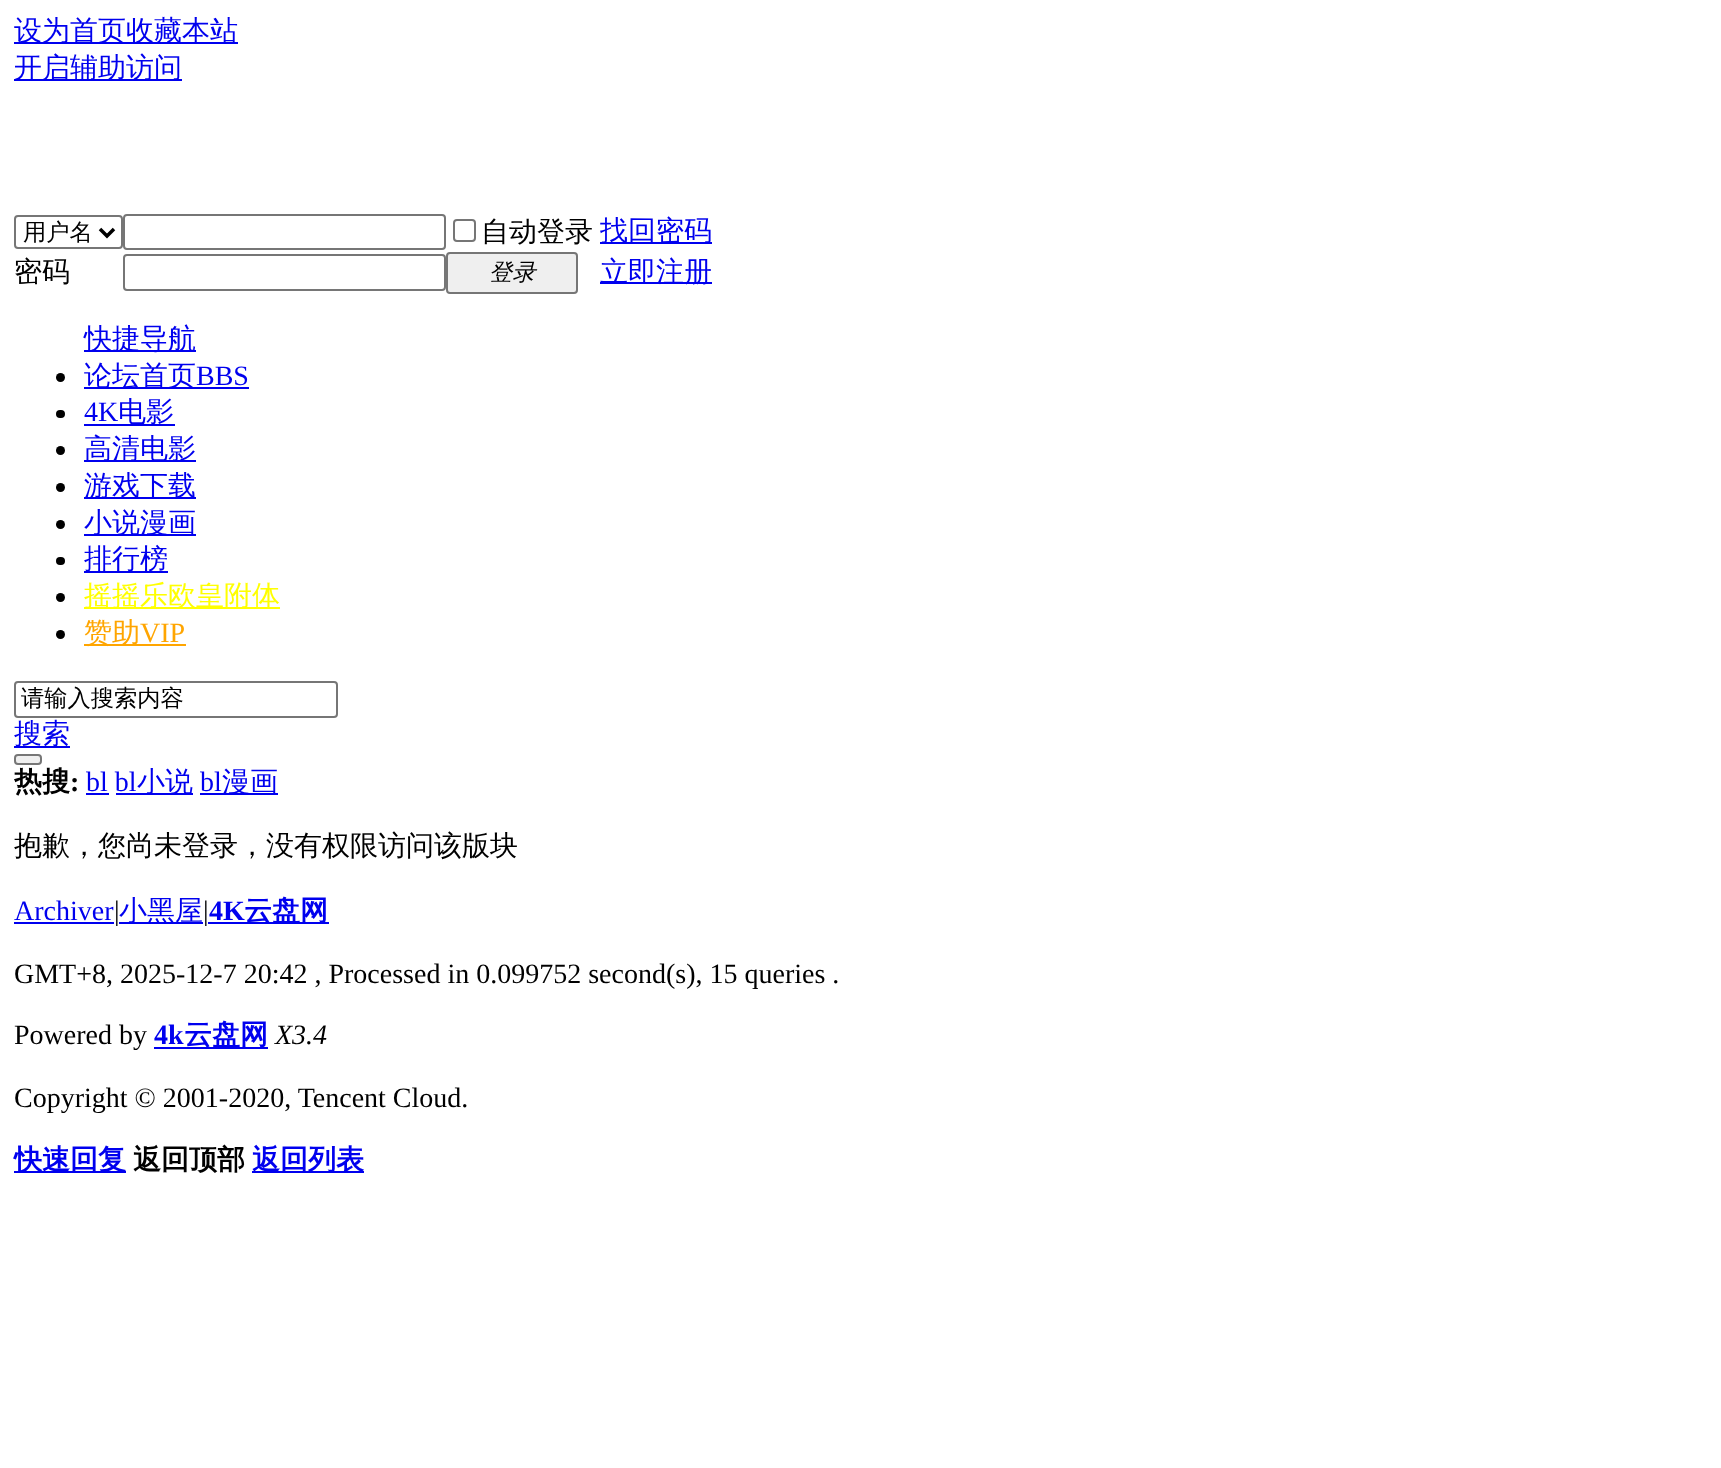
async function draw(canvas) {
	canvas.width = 1721;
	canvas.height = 1468;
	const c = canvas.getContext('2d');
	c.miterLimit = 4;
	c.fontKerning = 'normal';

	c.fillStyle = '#fff';
	c.fillRect(0, 0, 1721, 1468);
	c.fillStyle = '#00e';
	c.fillRect(14, 42, 224, 2);
	c.font = '500 28px WenQuanYi Zen Hei';
	c.fillText('设为首页收藏本站', 14, 40);
	c.fillRect(14, 79, 168, 2);
	c.fillText('开启辅助访问', 14, 77);
	c.beginPath();
	c.roundRect(15, 216, 107, 32, 3);
	c.strokeStyle = '#767676';
	c.lineWidth = 2;
	c.stroke();
	c.beginPath();
	c.moveTo(100, 229);
	c.lineTo(107, 236);
	c.lineTo(114, 229);
	c.strokeStyle = '#000';
	c.lineWidth = 3.5;
	c.stroke();
	c.font = '500 23.25px WenQuanYi Zen Hei';
	c.fillStyle = '#000';
	c.fillText('用户名', 23, 240);
	c.beginPath();
	c.roundRect(124, 215, 321, 34, 3);
	c.strokeStyle = '#767676';
	c.lineWidth = 2;
	c.stroke();
	c.beginPath();
	c.roundRect(454, 220, 21, 21, 3);
	c.stroke();
	c.font = '500 28px WenQuanYi Zen Hei';
	c.fillText('自动登录', 481, 241);
	c.fillStyle = '#00e';
	c.fillRect(600, 242, 112, 2);
	c.fillText('找回密码', 600, 240);
	c.fillStyle = '#000';
	c.fillText('密码', 14, 281);
	c.beginPath();
	c.roundRect(124, 255, 321, 35, 3);
	c.stroke();
	c.fillStyle = '#efefef';
	c.beginPath();
	c.roundRect(447, 253, 130, 40, 3);
	c.fill();
	c.stroke();
	c.font = 'italic 500 23.25px WenQuanYi Zen Hei';
	c.fillStyle = '#000';
	c.fillText('登录', 489, 280);
	c.fillStyle = '#00e';
	c.fillRect(600, 282, 112, 2);
	c.font = '500 28px WenQuanYi Zen Hei';
	c.fillText('立即注册', 600, 281);
	c.fillRect(84, 350, 112, 2);
	c.fillText('快捷导航', 84, 348);
	c.fillStyle = '#000';
	c.beginPath();
	c.arc(60.5, 377.5, 4.5, 0, 2 * Math.PI);
	c.fill();
	c.fillStyle = '#00e';
	c.fillRect(84, 387, 165, 2);
	c.fillText('论坛首页', 84, 385);
	c.font = '28px Liberation Serif';
	c.fillText('BBS', 196, 385);
	c.fillStyle = '#000';
	c.beginPath();
	c.roundRect(56, 410, 9, 8, 4);
	c.fill();
	c.fillStyle = '#00e';
	c.fillText('4K', 84, 421);
	c.fillRect(84, 424, 91, 2);
	c.font = '500 28px WenQuanYi Zen Hei';
	c.fillText('电影', 118, 421);
	c.fillStyle = '#000';
	c.beginPath();
	c.arc(60.5, 450.5, 4.5, 0, 2 * Math.PI);
	c.fill();
	c.fillStyle = '#00e';
	c.fillRect(84, 460, 112, 2);
	c.fillText('高清电影', 84, 458);
	c.fillStyle = '#000';
	c.beginPath();
	c.arc(60.5, 487.5, 4.5, 0, 2 * Math.PI);
	c.fill();
	c.fillStyle = '#00e';
	c.fillRect(84, 497, 112, 2);
	c.fillText('游戏下载', 84, 495);
	c.fillStyle = '#000';
	c.beginPath();
	c.arc(60.5, 524.5, 4.5, 0, 2 * Math.PI);
	c.fill();
	c.fillStyle = '#00e';
	c.fillRect(84, 534, 112, 2);
	c.fillText('小说漫画', 84, 532);
	c.fillStyle = '#000';
	c.beginPath();
	c.roundRect(56, 557, 9, 8, 4);
	c.fill();
	c.fillStyle = '#00e';
	c.fillRect(84, 571, 84, 2);
	c.fillText('排行榜', 84, 568);
	c.fillStyle = '#000';
	c.beginPath();
	c.arc(60.5, 597.5, 4.5, 0, 2 * Math.PI);
	c.fill();
	c.fillStyle = '#ff0';
	c.fillRect(84, 607, 196, 2);
	c.fillText('摇摇乐欧皇附体', 84, 605);
	c.fillStyle = '#000';
	c.beginPath();
	c.arc(60.5, 634.5, 4.5, 0, 2 * Math.PI);
	c.fill();
	c.fillStyle = '#ffa500';
	c.fillRect(84, 644, 102, 2);
	c.fillText('赞助', 84, 642);
	c.font = '28px Liberation Serif';
	c.fillText('VIP', 140, 642);
	c.beginPath();
	c.roundRect(15, 682, 322, 35, 3);
	c.stroke();
	c.font = '500 23.25px WenQuanYi Zen Hei';
	c.fillStyle = '#000';
	c.fillText('请输入搜索内容', 21, 706);
	c.fillStyle = '#00e';
	c.fillRect(14, 746, 56, 2);
	c.font = '500 28px WenQuanYi Zen Hei';
	c.fillText('搜索', 14, 743);
	c.fillStyle = '#efefef';
	c.beginPath();
	c.roundRect(15, 755, 26, 9, 3);
	c.fill();
	c.stroke();
	c.font = 'bold 28px WenQuanYi Zen Hei';
	c.fillStyle = '#000';
	c.fillText('热搜', 14, 791);
	c.font = 'bold 28px Liberation Serif';
	c.fillText(':', 70, 791);
	c.font = '28px Liberation Serif';
	c.fillStyle = '#00e';
	c.fillText('bl bl', 86, 791);
	c.fillRect(86, 793, 23, 2);
	c.fillRect(116, 793, 77, 2);
	c.font = '500 28px WenQuanYi Zen Hei';
	c.fillText('小说', 137, 791);
	c.font = '28px Liberation Serif';
	c.fillText('bl', 200, 791);
	c.fillRect(200, 793, 78, 2);
	c.font = '500 28px WenQuanYi Zen Hei';
	c.fillText('漫画', 222, 791);
	c.fillStyle = '#000';
	c.fillText('抱歉，您尚未登录，没有权限访问该版块', 14, 855);
	c.font = '28px Liberation Serif';
	c.fillStyle = '#00e';
	c.fillText('Archiver', 14, 920);
	c.fillRect(14, 922, 100, 2);
	c.fillStyle = '#000';
	c.fillText('|', 114, 920);
	c.fillStyle = '#00e';
	c.fillRect(119, 922, 84, 2);
	c.font = '500 28px WenQuanYi Zen Hei';
	c.fillText('小黑屋', 119, 920);
	c.font = '28px Liberation Serif';
	c.fillStyle = '#000';
	c.fillText('|', 203, 920);
	c.font = 'bold 28px Liberation Serif';
	c.fillStyle = '#00e';
	c.fillText('4K', 209, 920);
	c.fillRect(208, 922, 121, 2);
	c.font = 'bold 28px WenQuanYi Zen Hei';
	c.fillText('云盘网', 244, 920);
	c.font = '28px Liberation Serif';
	c.fillStyle = '#000';
	c.fillText('GMT+8, 2025-12-7 20:42 , Processed in 0.099752 second(s), 15 queries .', 14, 983);
	c.fillText('Powered by', 14, 1044);
	c.font = 'bold 28px Liberation Serif';
	c.fillStyle = '#00e';
	c.fillText('4k', 154, 1044);
	c.fillRect(154, 1047, 114, 2);
	c.font = 'bold 28px WenQuanYi Zen Hei';
	c.fillText('云盘网', 184, 1044);
	c.font = 'italic 28px Liberation Serif';
	c.fillStyle = '#000';
	c.fillText('X3.4', 275, 1044);
	c.font = '28px Liberation Serif';
	c.fillText('Copyright © 2001-2020, Tencent Cloud.', 14, 1107);
	c.fillStyle = '#00e';
	c.fillRect(14, 1171, 112, 2);
	c.font = 'bold 28px WenQuanYi Zen Hei';
	c.fillText('快速回复', 14, 1169);
	c.fillStyle = '#000';
	c.fillText('返回顶部', 133, 1169);
	c.fillStyle = '#00e';
	c.fillRect(252, 1171, 112, 2);
	c.fillText('返回列表', 252, 1169);
}

draw(document.querySelector('canvas'));
